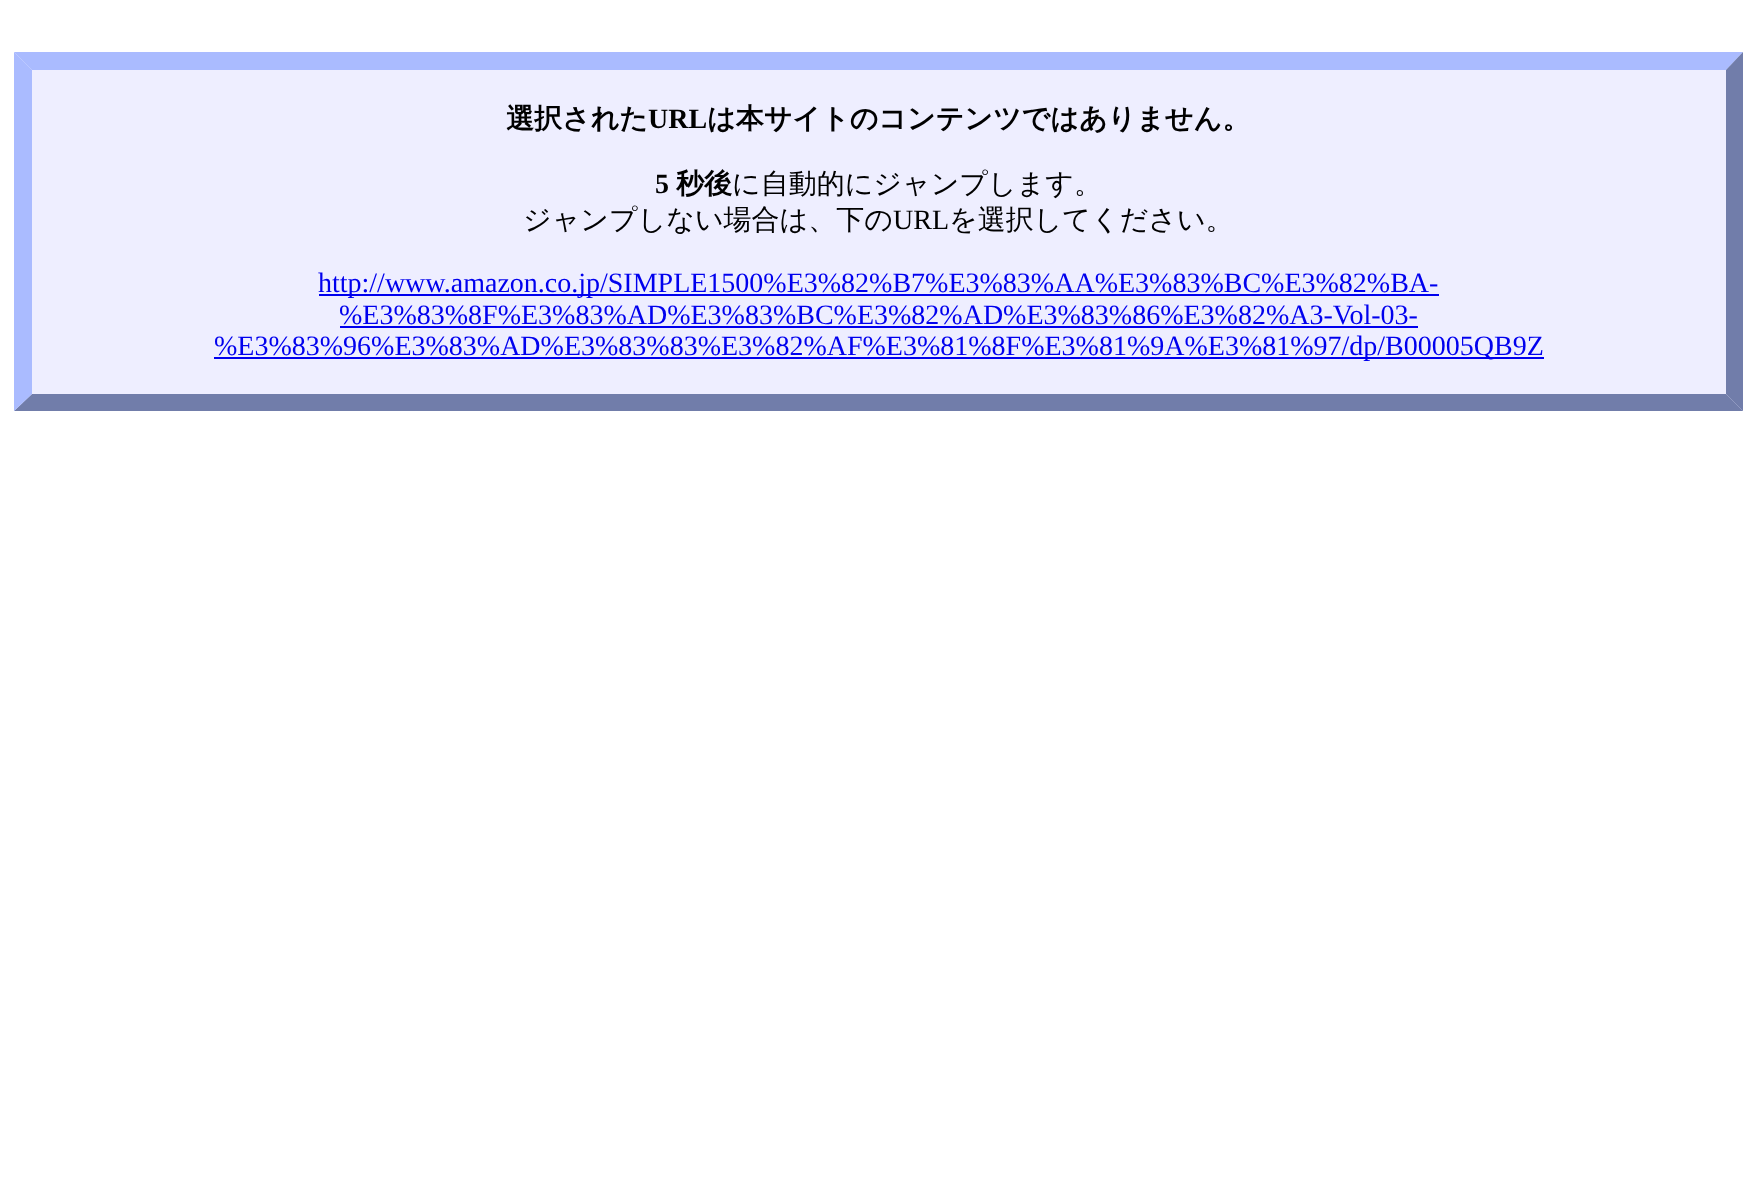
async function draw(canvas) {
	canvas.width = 1756;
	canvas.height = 1188;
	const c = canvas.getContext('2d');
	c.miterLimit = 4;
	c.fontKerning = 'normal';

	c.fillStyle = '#fff';
	c.fillRect(0, 0, 1756, 1188);
	c.fillStyle = '#eef';
	c.fillRect(14, 53, 1729, 358);
	c.fillStyle = '#abf';
	c.beginPath();
	c.moveTo(14, 52);
	c.lineTo(1743, 52);
	c.lineTo(1726, 70);
	c.lineTo(32, 70);
	c.closePath();
	c.fill();
	c.fillStyle = '#717daa';
	c.beginPath();
	c.moveTo(1743, 52);
	c.lineTo(1743, 411);
	c.lineTo(1726, 394);
	c.lineTo(1726, 70);
	c.closePath();
	c.fill();
	c.beginPath();
	c.moveTo(1743, 411);
	c.lineTo(14, 411);
	c.lineTo(32, 394);
	c.lineTo(1726, 394);
	c.closePath();
	c.fill();
	c.fillStyle = '#abf';
	c.beginPath();
	c.moveTo(14, 411);
	c.lineTo(14, 52);
	c.lineTo(32, 70);
	c.lineTo(32, 394);
	c.closePath();
	c.fill();
	c.font = 'bold 28px WenQuanYi Zen Hei';
	c.fillStyle = '#000';
	c.fillText('選択された', 506, 128);
	c.font = 'bold 28px Liberation Serif';
	c.fillText('URL', 648, 128);
	c.font = 'bold 28px WenQuanYi Zen Hei';
	c.fillText('は本サイトのコンテンツではありません。', 707, 128);
	c.font = 'bold 28px Liberation Serif';
	c.fillText('5', 655, 193);
	c.font = 'bold 28px WenQuanYi Zen Hei';
	c.fillText('秒後', 676, 193);
	c.font = '500 28px WenQuanYi Zen Hei';
	c.fillText('に自動的にジャンプします。', 732, 193);
	c.fillText('ジャンプしない場合は、下の', 523, 229);
	c.font = '28px Liberation Serif';
	c.fillText('URL', 893, 229);
	c.font = '500 28px WenQuanYi Zen Hei';
	c.fillText('を選択してください。', 949, 229);
	c.fillStyle = '#00e';
	c.fillRect(319, 294, 1120, 2);
	c.font = '28px Liberation Serif';
	c.fillText('http://www.amazon.co.jp/SIMPLE1500%E3%82%B7%E3%83%AA%E3%83%BC%E3%82%BA-', 318, 292);
	c.fillText('%E3%83%8F%E3%83%AD%E3%83%BC%E3%82%AD%E3%83%86%E3%82%A3-Vol-03-', 339, 324);
	c.fillRect(340, 326, 1078, 2);
	c.fillRect(214, 357, 1330, 2);
	c.fillText('%E3%83%96%E3%83%AD%E3%83%83%E3%82%AF%E3%81%8F%E3%81%9A%E3%81%97/dp/B00005QB9Z', 214, 355);
}

draw(document.querySelector('canvas'));
